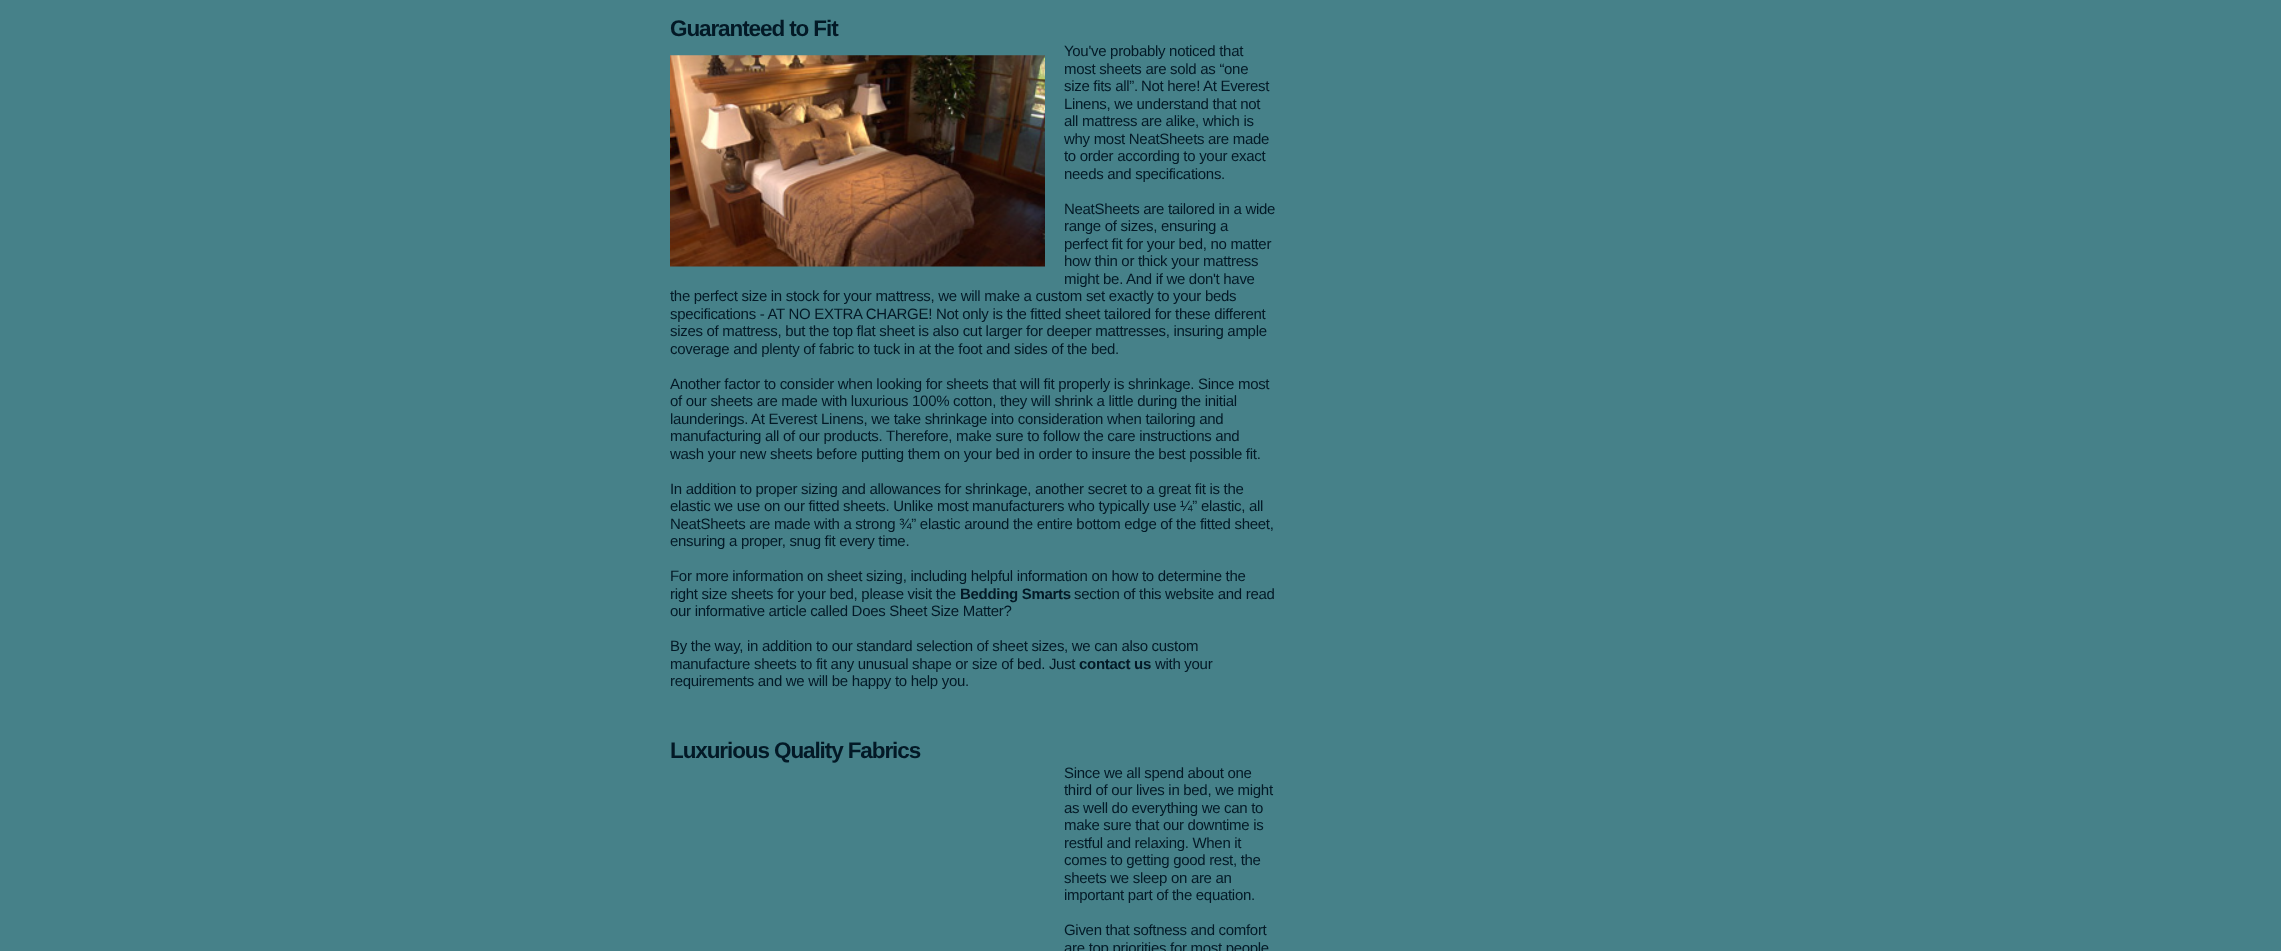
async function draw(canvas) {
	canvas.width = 2281;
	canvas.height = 951;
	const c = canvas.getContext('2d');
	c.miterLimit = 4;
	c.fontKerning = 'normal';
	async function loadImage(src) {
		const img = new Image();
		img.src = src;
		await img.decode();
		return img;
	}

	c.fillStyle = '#468189';
	c.fillRect(0, 0, 2281, 951);
	c.letterSpacing = '-1.1px';
	c.font = 'bold 22.5px Liberation Sans';
	c.fillStyle = '#031926';
	c.fillText('Guaranteed to Fit', 670, 36);
	c.letterSpacing = '-0.3px';
	c.font = '15px Liberation Sans';
	c.fillText('You\'ve probably noticed that', 1064, 56);
	c.drawImage(await loadImage('img1.png'), 670, 55, 375, 212);
	for (const [text, x, y] of [
		['most sheets are sold as “one', 1064, 74],
		['size fits all”.', 1064, 91],
		['Not here!', 1141, 91],
		['At Everest', 1203, 91],
		['Linens, we understand that not', 1064, 109],
		['all mattress are alike, which is', 1064, 126],
		['why most NeatSheets are made', 1064, 144],
		['to order according to your exact', 1064, 161],
		['needs and specifications.', 1064, 179],
		['NeatSheets are tailored in a wide', 1064, 214],
		['range of sizes, ensuring a', 1064, 231],
		['perfect fit for your bed, no matter', 1064, 249],
		['how thin or thick your mattress', 1064, 266],
		['might be.', 1064, 284],
		['And if we don\'t have', 1126, 284],
		['the perfect size in stock for your mattress, we will make a custom set exactly to your beds', 670, 301],
		['specifications - AT NO EXTRA CHARGE! Not only is the fitted sheet tailored for these different', 670, 319],
		['sizes of mattress, but the top flat sheet is also cut larger for deeper mattresses, insuring ample', 670, 336],
		['coverage and plenty of fabric to tuck in at the foot and sides of the bed.', 670, 354],
		['Another factor to consider when looking for sheets that will fit properly is shrinkage. Since most', 670, 389],
		['of our sheets are made with luxurious 100% cotton, they will shrink a little during the initial', 670, 406],
		['launderings.', 670, 424],
		['At Everest Linens, we take shrinkage into consideration when tailoring and', 751, 424],
		['manufacturing all of our products. Therefore, make sure to follow the care instructions and', 670, 441],
		['wash your new sheets before putting them on your bed in order to insure the best possible fit.', 670, 459],
		['In addition to proper sizing and allowances for shrinkage, another secret to a great fit is the', 670, 494],
		['elastic we use on our fitted sheets. Unlike most manufacturers who typically use ¼” elastic, all', 670, 511],
		['NeatSheets are made with a strong ¾” elastic around the entire bottom edge of the fitted sheet,', 670, 529],
		['ensuring a proper, snug fit every time.', 670, 546],
		['For more information on sheet sizing, including helpful information on how to determine the', 670, 581],
		['right size sheets for your bed, please visit the', 670, 599],
	]) {
		c.fillText(text, x, y);
	}
	c.font = 'bold 15px Liberation Sans';
	c.fillText('Bedding Smarts', 960, 599);
	c.font = '15px Liberation Sans';
	for (const [text, x, y] of [
		['section of this website and read', 1074, 599],
		['our informative article called Does Sheet Size Matter?', 670, 616],
		['By the way, in addition to our standard selection of sheet sizes, we can also custom', 670, 651],
		['manufacture sheets to fit any unusual shape or size of bed. Just', 670, 669],
	]) {
		c.fillText(text, x, y);
	}
	c.font = 'bold 15px Liberation Sans';
	c.fillText('contact us', 1079, 669);
	c.font = '15px Liberation Sans';
	c.fillText('with your', 1155, 669);
	c.fillText('requirements and we will be happy to help you.', 670, 686);
	c.letterSpacing = '-1.1px';
	c.font = 'bold 22.5px Liberation Sans';
	c.fillText('Luxurious Quality Fabrics', 670, 758);
	c.letterSpacing = '-0.3px';
	c.font = '15px Liberation Sans';
	for (const [text, x, y] of [
		['Since we all spend about one', 1064, 778],
		['third of our lives in bed, we might', 1064, 795],
		['as well do everything we can to', 1064, 813],
		['make sure that our downtime is', 1064, 830],
		['restful and relaxing. When it', 1064, 848],
		['comes to getting good rest, the', 1064, 865],
		['sheets we sleep on are an', 1064, 883],
		['important part of the equation.', 1064, 900],
		['Given that softness and comfort', 1064, 935],
		['are top priorities for most people', 1064, 953],
	]) {
		c.fillText(text, x, y);
	}
}

draw(document.querySelector('canvas'));
